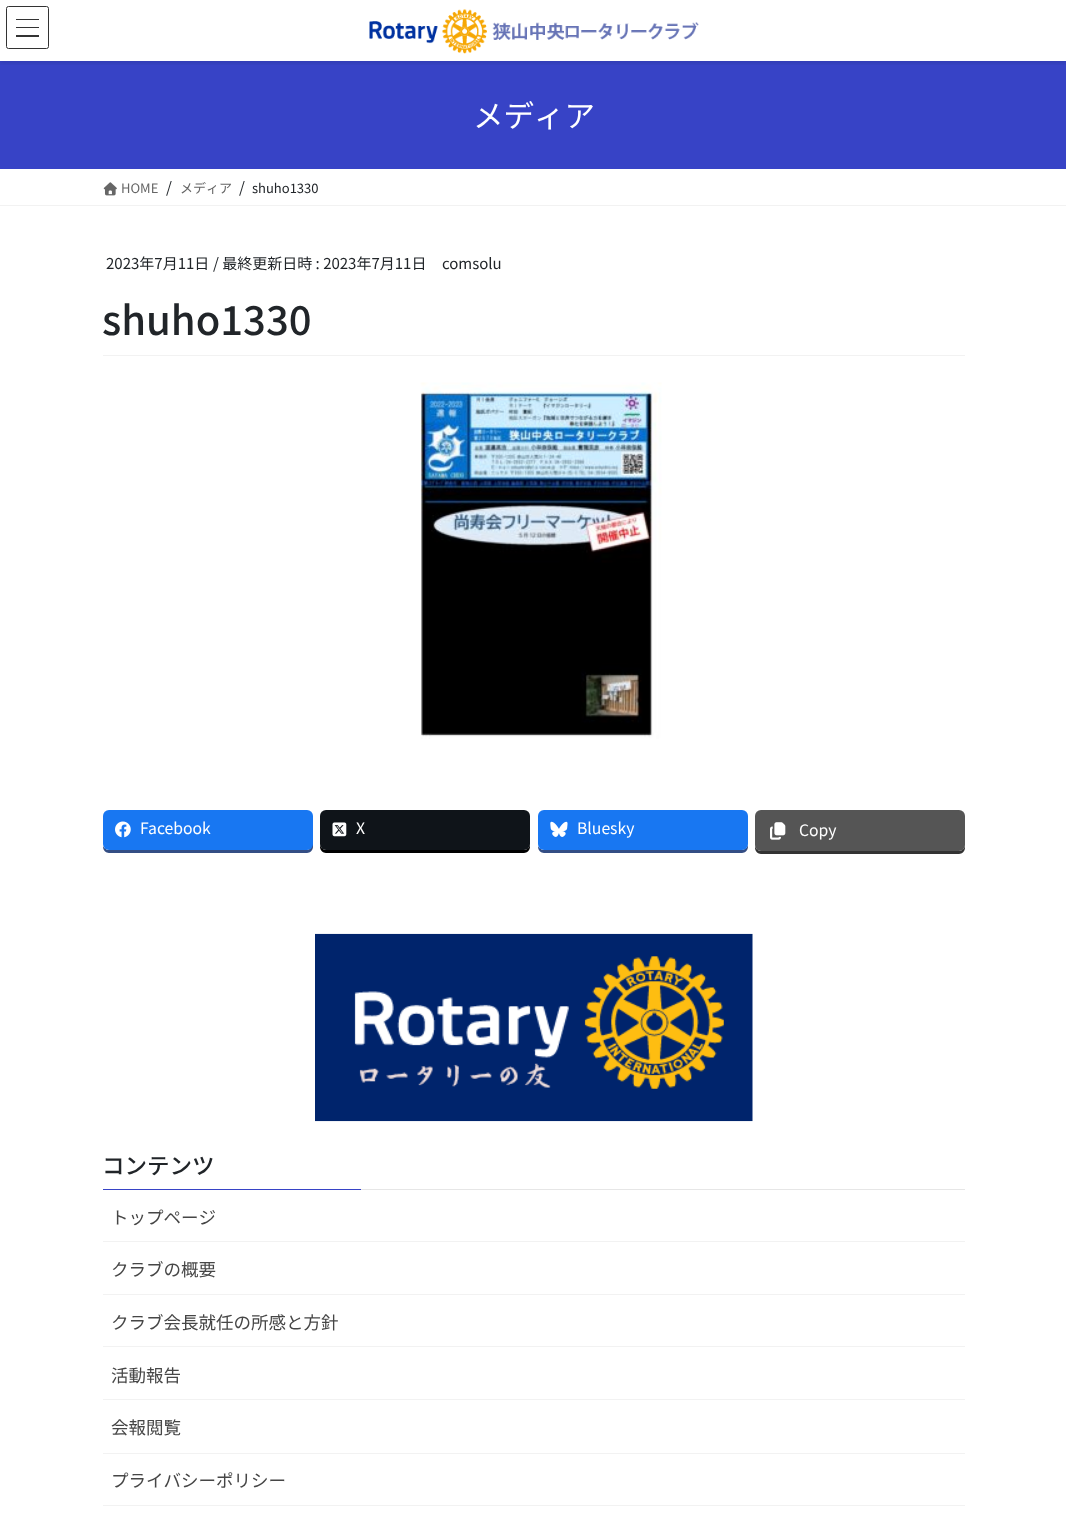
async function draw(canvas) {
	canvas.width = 1066;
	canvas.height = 1530;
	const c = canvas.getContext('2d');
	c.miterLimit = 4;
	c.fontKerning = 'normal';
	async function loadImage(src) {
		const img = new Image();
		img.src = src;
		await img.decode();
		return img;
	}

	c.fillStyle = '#fff';
	c.fillRect(0, 0, 1066, 1530);
	c.fillStyle = '#3743c6';
	c.fillRect(0, 61, 1066, 108);
	c.save();
	c.beginPath();
	c.rect(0, 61, 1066, 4);
	c.clip();
	c.fillStyle = '#0000001a';
	c.filter = 'blur(2px)';
	c.beginPath();
	c.rect(0, 1, 1066, 62);
	c.fill();
	c.filter = 'none';
	c.restore();
	c.drawImage(await loadImage('img1.png'), 369, 9, 330, 45);
	for (const [x, y, w, h, color] of [
		[16, 19, 23, 1, '#333'],
		[16, 27, 23, 1, '#333'],
		[16, 35, 23, 2, '#333'],
	]) {
		c.fillStyle = color;
		c.fillRect(x, y, w, h);
	}
	c.beginPath();
	c.roundRect(6.5, 6.5, 42, 42, 2);
	c.strokeStyle = '#333';
	c.stroke();
	c.font = '30.5px Noto Sans JP';
	c.fillStyle = '#fff';
	c.fillText('メディア', 473, 127);
	c.fillStyle = '#f2f2f2';
	c.fillRect(0, 205, 1066, 1);
	c.drawImage(await loadImage('img2.png'), 103, 182, 14, 14);
	c.font = '13px Noto Sans JP';
	c.fillStyle = '#666';
	c.fillText('HOME', 121, 193);
	c.font = '15px Noto Sans JP';
	c.fillStyle = '#212529';
	c.fillText('/', 166, 193);
	c.font = '13px Noto Sans JP';
	c.fillStyle = '#666';
	c.fillText('メディア', 180, 193);
	c.font = '15px Noto Sans JP';
	c.fillStyle = '#212529';
	c.fillText('/', 239, 193);
	c.font = '13px Noto Sans JP';
	c.fillText('shuho1330', 252, 193);
	c.fillStyle = '#f2f2f2';
	c.fillRect(103, 355, 862, 1);
	c.font = '15px Noto Sans JP';
	c.fillStyle = '#212529';
	for (const [text, x, y] of [
		['2023年7月11日', 106, 269],
		['/ 最終更新日時 : 2023年7月11日', 213, 269],
		['comsolu', 442, 269],
	]) {
		c.fillText(text, x, y);
	}
	c.font = '500 40px Noto Sans JP';
	c.fillText('shuho1330', 102, 335);
	c.drawImage(await loadImage('img3.png'), 420, 382, 242, 357);
	c.fillStyle = '#344e84';
	c.beginPath();
	c.moveTo(103, 846);
	c.lineTo(103, 847);
	c.bezierCurveTo(103, 850, 106, 853, 109, 853);
	c.lineTo(307, 853);
	c.bezierCurveTo(310, 853, 313, 850, 313, 847);
	c.lineTo(313, 819);
	c.lineTo(312, 817);
	c.lineTo(312, 844);
	c.bezierCurveTo(312, 847, 310, 850, 306, 850);
	c.lineTo(109, 850);
	c.bezierCurveTo(106, 850, 104, 848, 103, 846);
	c.closePath();
	c.fill();
	c.fillStyle = '#1877f2';
	c.beginPath();
	c.roundRect(103, 810, 210, 40, 6);
	c.fill();
	c.drawImage(await loadImage('img4.png'), 115, 821, 16, 17);
	c.font = '15.75px Noto Sans JP';
	c.fillStyle = '#fff';
	c.fillText('Facebook', 140, 834);
	c.fillStyle = '#000';
	c.beginPath();
	c.moveTo(320, 844);
	c.lineTo(320, 847);
	c.bezierCurveTo(320, 850, 323, 853, 326, 853);
	c.lineTo(524, 853);
	c.bezierCurveTo(527, 853, 530, 850, 530, 847);
	c.lineTo(530, 844);
	c.bezierCurveTo(530, 847, 527, 850, 524, 850);
	c.lineTo(326, 850);
	c.bezierCurveTo(323, 850, 320, 847, 320, 844);
	c.closePath();
	c.fill();
	c.fillStyle = '#0f1419';
	c.beginPath();
	c.roundRect(320, 810, 210, 40, 6);
	c.fill();
	c.drawImage(await loadImage('img5.png'), 332, 822, 15, 15);
	c.fillStyle = '#fff';
	c.fillText('X', 356, 834);
	c.fillStyle = '#344e84';
	c.beginPath();
	c.moveTo(538, 846);
	c.lineTo(538, 847);
	c.bezierCurveTo(538, 850, 541, 853, 544, 853);
	c.lineTo(742, 853);
	c.bezierCurveTo(745, 853, 748, 850, 748, 847);
	c.lineTo(748, 819);
	c.lineTo(748, 817);
	c.lineTo(748, 844);
	c.bezierCurveTo(748, 847, 745, 850, 741, 850);
	c.lineTo(544, 850);
	c.bezierCurveTo(541, 850, 539, 848, 538, 846);
	c.closePath();
	c.fill();
	c.fillStyle = '#1877f2';
	c.beginPath();
	c.roundRect(538, 810, 210, 40, 6);
	c.fill();
	c.drawImage(await loadImage('img6.png'), 550, 821, 18, 16);
	c.fillStyle = '#fff';
	c.fillText('Bluesky', 577, 834);
	c.fillStyle = '#333';
	c.beginPath();
	c.moveTo(755, 845);
	c.lineTo(755, 848);
	c.bezierCurveTo(755, 851, 758, 854, 761, 854);
	c.lineTo(959, 854);
	c.bezierCurveTo(962, 854, 965, 851, 965, 848);
	c.lineTo(965, 845);
	c.bezierCurveTo(965, 848, 962, 851, 959, 851);
	c.lineTo(761, 851);
	c.bezierCurveTo(758, 851, 755, 848, 755, 845);
	c.closePath();
	c.fill();
	c.fillStyle = '#555';
	c.beginPath();
	c.roundRect(755, 810, 210, 41, 6);
	c.fill();
	c.drawImage(await loadImage('img7.png'), 770, 822, 16, 18);
	c.fillStyle = '#fff';
	c.fillText('Copy', 799, 836);
	c.drawImage(await loadImage('img8.png'), 315, 933, 438, 189);
	c.fillStyle = '#e6e6e6';
	c.fillRect(361, 1189, 604, 1);
	c.font = '500 22.5px Noto Sans JP';
	c.fillStyle = '#212529';
	c.fillText('コンテンツ', 102, 1174);
	c.fillStyle = '#3743c6';
	c.fillRect(103, 1189, 258, 1);
	c.fillStyle = '#f2f2f2';
	c.fillRect(103, 1241, 862, 1);
	c.font = '17.5px Noto Sans JP';
	c.fillStyle = '#464646';
	c.fillText('トップページ', 111, 1224);
	c.fillStyle = '#f2f2f2';
	c.fillRect(103, 1294, 862, 1);
	c.fillStyle = '#464646';
	c.fillText('クラブの概要', 111, 1276);
	c.fillStyle = '#f2f2f2';
	c.fillRect(103, 1346, 862, 1);
	c.fillStyle = '#464646';
	c.fillText('クラブ会長就任の所感と方針', 111, 1329);
	c.fillStyle = '#f2f2f2';
	c.fillRect(103, 1399, 862, 1);
	c.fillStyle = '#464646';
	c.fillText('活動報告', 111, 1382);
	c.fillStyle = '#f2f2f2';
	c.fillRect(103, 1453, 862, 1);
	c.fillStyle = '#464646';
	c.fillText('会報閲覧', 111, 1434);
	c.fillStyle = '#f2f2f2';
	c.fillRect(103, 1505, 862, 1);
	c.fillStyle = '#464646';
	c.fillText('プライバシーポリシー', 111, 1487);
}

draw(document.querySelector('canvas'));
